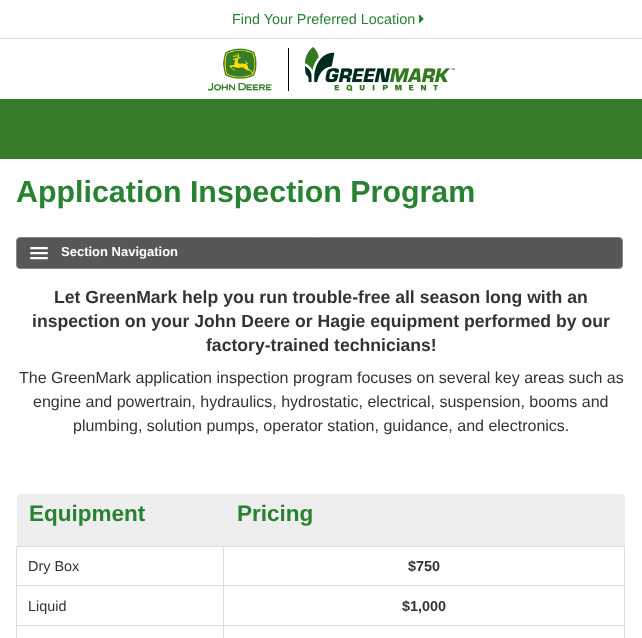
async function draw(canvas) {
	canvas.width = 642;
	canvas.height = 638;
	const c = canvas.getContext('2d');
	c.miterLimit = 4;
	c.fontKerning = 'normal';
	async function loadImage(src) {
		const img = new Image();
		img.src = src;
		await img.decode();
		return img;
	}
	let gradient;

	c.fillStyle = '#fff';
	c.fillRect(0, 0, 642, 638);
	c.fillStyle = '#ddd';
	c.fillRect(0, 38, 642, 1);
	c.font = '14.4px Liberation Sans';
	c.fillStyle = '#288232';
	c.fillText('Find Your Preferred Location', 232, 24);
	c.drawImage(await loadImage('img1.png'), 419, 14, 5, 9);
	c.fillStyle = '#000';
	c.fillRect(288, 48, 1, 43);
	c.drawImage(await loadImage('img2.png'), 207, 48, 65, 43);
	c.drawImage(await loadImage('img3.png'), 305, 47, 150, 44);
	c.fillStyle = '#367c2b';
	c.fillRect(0, 99, 642, 60);
	c.font = 'bold 30.4px Liberation Sans';
	c.fillStyle = '#288232';
	c.fillText('Application Inspection Program', 16, 202);
	c.fillStyle = '#575757';
	c.beginPath();
	c.roundRect(16.5, 237.5, 606, 31, 3.5);
	c.fill();
	c.strokeStyle = '#888';
	c.stroke();
	c.fillStyle = '#818181';
	c.beginPath();
	c.moveTo(30, 248.5);
	c.bezierCurveTo(29, 250.5, 33.5, 250, 33.5, 250);
	c.lineTo(44.5, 250);
	c.bezierCurveTo(44.5, 250, 49, 250.5, 48, 248.5);
	c.bezierCurveTo(47, 249.5, 40.5, 249, 39, 249);
	c.bezierCurveTo(37.5, 249, 31, 249.5, 30, 248.5);
	c.closePath();
	c.fill();
	c.fillStyle = '#fff';
	c.beginPath();
	c.roundRect(30, 247, 18, 2, 1);
	c.fill();
	c.font = 'bold 13px Liberation Sans';
	c.fillText('Section Navigation', 61, 256);
	c.fillStyle = '#818181';
	c.beginPath();
	c.moveTo(30, 253.5);
	c.bezierCurveTo(29, 255.5, 33.5, 255, 33.5, 255);
	c.lineTo(44.5, 255);
	c.bezierCurveTo(44.5, 255, 49, 255.5, 48, 253.5);
	c.bezierCurveTo(47, 254.5, 40.5, 254, 39, 254);
	c.bezierCurveTo(37.5, 254, 31, 254.5, 30, 253.5);
	c.closePath();
	c.fill();
	c.fillStyle = '#fff';
	c.beginPath();
	c.roundRect(30, 252, 18, 2, 1);
	c.fill();
	c.fillStyle = '#818181';
	c.beginPath();
	c.moveTo(30, 258.5);
	c.bezierCurveTo(29, 260.5, 33.5, 260, 33.5, 260);
	c.lineTo(44.5, 260);
	c.bezierCurveTo(44.5, 260, 49, 260.5, 48, 258.5);
	c.bezierCurveTo(47, 259.5, 40.5, 259, 39, 259);
	c.bezierCurveTo(37.5, 259, 31, 259.5, 30, 258.5);
	c.closePath();
	c.fill();
	c.fillStyle = '#fff';
	c.beginPath();
	c.roundRect(30, 257, 18, 2, 1);
	c.fill();
	c.font = 'bold 17.6px Liberation Sans';
	c.fillStyle = '#333';
	for (const [text, x, y] of [
		['Let GreenMark help you run trouble-free all season long with an', 54, 303],
		['inspection on your John Deere or Hagie equipment performed by our', 32, 327],
		['factory-trained technicians!', 206, 351],
	]) {
		c.fillText(text, x, y);
	}
	c.font = '16px Liberation Sans';
	for (const [text, x, y] of [
		['The GreenMark application inspection program focuses on several key areas such as', 19, 383],
		['engine and powertrain, hydraulics, hydrostatic, electrical, suspension, booms and', 33, 407],
		['plumbing, solution pumps, operator station, guidance, and electronics.', 73, 431],
	]) {
		c.fillText(text, x, y);
	}
	gradient = c.createRadialGradient(626, 79.87, 0, 626, 79.87, 14);
	gradient.addColorStop(0, '#333');
	gradient.addColorStop(1, '#fff');
	c.fillStyle = gradient;
	c.beginPath();
	c.rect(612, 547, 2, 91);
	c.save();
	c.clip();
	c.scale(1, 105 / 14);
	c.fillRect(0, 0, 642, 86);
	c.restore();
	gradient = c.createRadialGradient(16, 79.87, 0, 16, 79.87, 14);
	gradient.addColorStop(0, '#333');
	gradient.addColorStop(1, '#fff');
	c.fillStyle = gradient;
	c.beginPath();
	c.rect(28, 547, 2, 91);
	c.save();
	c.clip();
	c.scale(1, 105 / 14);
	c.fillRect(0, 0, 642, 86);
	c.restore();
	gradient = c.createLinearGradient(586, 599, 626, 599);
	gradient.addColorStop(0, '#ffffff00');
	gradient.addColorStop(0.7, '#fff');
	c.fillStyle = gradient;
	c.fillRect(612, 555, 2, 83);
	gradient = c.createLinearGradient(16, 599, 56, 599);
	gradient.addColorStop(0.3, '#fff');
	gradient.addColorStop(1, '#ffffff00');
	c.fillStyle = gradient;
	c.fillRect(28, 555, 2, 83);
	c.fillStyle = '#eee';
	c.beginPath();
	c.roundRect(17, 494, 207, 53, [4, 0, 0, 0]);
	c.fill();
	c.font = 'bold 22.5px Liberation Sans';
	c.fillStyle = '#288232';
	c.fillText('Equipment', 29, 521);
	c.fillStyle = '#eee';
	c.beginPath();
	c.roundRect(224, 494, 401, 53, [0, 4, 0, 0]);
	c.fill();
	c.fillStyle = '#288232';
	c.fillText('Pricing', 237, 521);
	for (const [x, y, w, h, color] of [
		[223, 546, 402, 1, '#ddd'],
		[223, 585, 402, 1, '#ddd'],
		[223, 625, 402, 1, '#ddd'],
		[223, 625, 1, 13, '#ddd'],
		[16, 625, 208, 1, '#ddd'],
		[223, 585, 1, 41, '#ddd'],
		[16, 585, 208, 1, '#ddd'],
		[223, 546, 1, 40, '#ddd'],
		[16, 546, 208, 1, '#ddd'],
		[16, 625, 1, 13, '#ddd'],
		[16, 585, 1, 41, '#ddd'],
		[16, 546, 1, 40, '#ddd'],
	]) {
		c.fillStyle = color;
		c.fillRect(x, y, w, h);
	}
	c.font = '14.4px Liberation Sans';
	c.fillStyle = '#333';
	c.fillText('Dry Box', 28, 571);
	for (const [x, y, w, h, color] of [
		[624, 625, 1, 13, '#ddd'],
		[624, 585, 1, 41, '#ddd'],
		[624, 546, 1, 40, '#ddd'],
	]) {
		c.fillStyle = color;
		c.fillRect(x, y, w, h);
	}
	c.font = 'bold 14.4px Liberation Sans';
	c.fillStyle = '#333';
	c.fillText('$750', 408, 571);
	c.font = '14.4px Liberation Sans';
	c.fillText('Liquid', 28, 611);
	c.font = 'bold 14.4px Liberation Sans';
	c.fillText('$1,000', 402, 611);
}

draw(document.querySelector('canvas'));
